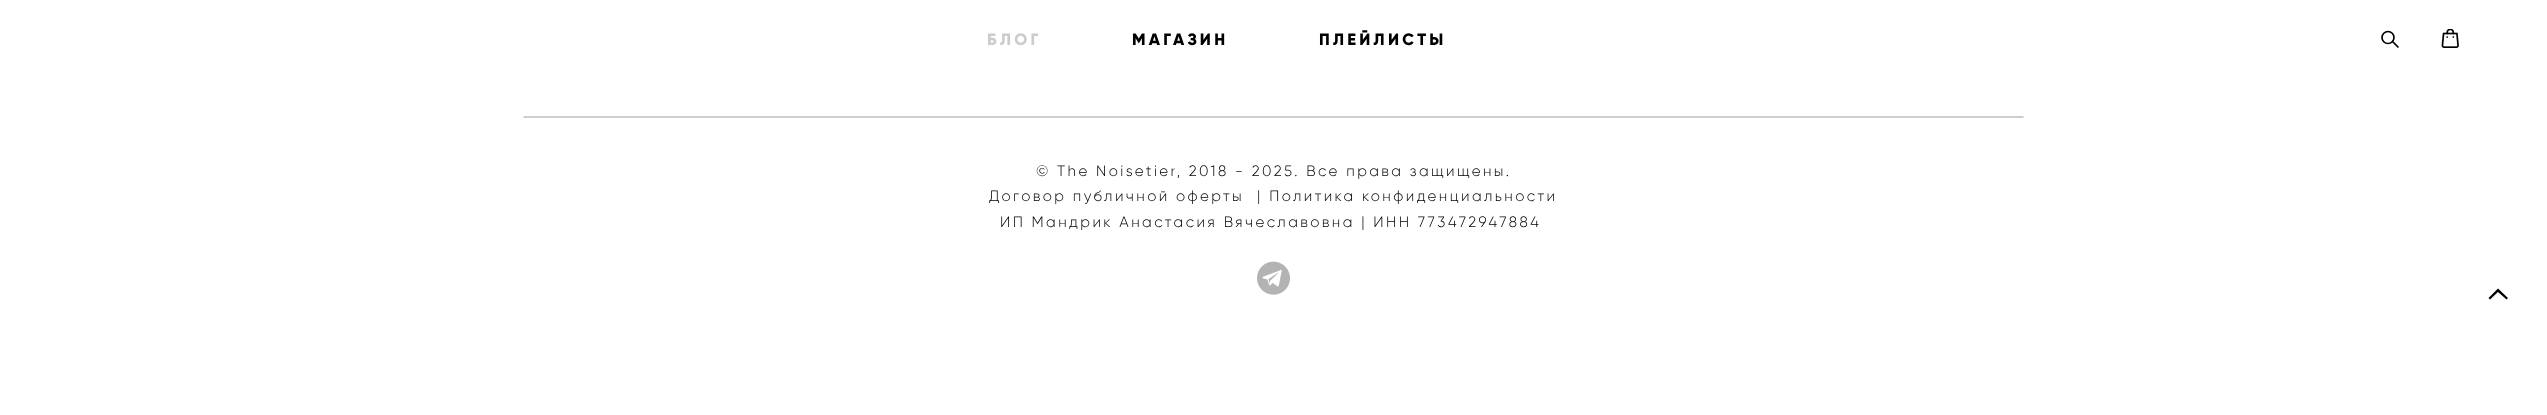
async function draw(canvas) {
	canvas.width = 2547;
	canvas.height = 415;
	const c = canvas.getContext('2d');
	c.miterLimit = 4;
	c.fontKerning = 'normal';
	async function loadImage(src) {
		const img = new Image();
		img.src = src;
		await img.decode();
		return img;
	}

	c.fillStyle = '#fff';
	c.fillRect(0, 0, 2547, 415);
	c.letterSpacing = '3.25px';
	c.font = '800 16.5px Gilroy';
	c.fillStyle = '#ccc';
	c.fillText('БЛОГ', 987, 45);
	c.fillStyle = '#000';
	c.fillText('МАГАЗИН', 1132, 45);
	c.fillText('ПЛЕЙЛИСТЫ', 1319, 45);
	c.beginPath();
	c.arc(2388, 37.5, 6, 0, 2 * Math.PI);
	c.strokeStyle = '#000';
	c.lineWidth = 1.7;
	c.stroke();
	c.beginPath();
	c.moveTo(2392.5, 41.5);
	c.lineTo(2398, 47);
	c.lineCap = 'round';
	c.lineJoin = 'round';
	c.stroke();
	c.drawImage(await loadImage('img1.png'), 2441, 29, 18, 19);
	c.drawImage(await loadImage('img2.png'), 523, 116, 1501, 2);
	c.letterSpacing = '2.4px';
	c.font = '300 15px Gilroy';
	for (const [text, x, y] of [
		['© The Noisetier, 2018 - 2025. Все права защищены.', 1036, 176],
		['Договор публичной оферты', 989, 201],
		['| Политика конфиденциальности', 1257, 201],
		['ИП Мандрик Анастасия Вячеславовна | ИНН 773472947884', 1000, 227],
	]) {
		c.fillText(text, x, y);
	}
	c.drawImage(await loadImage('img3.png'), 1257, 261, 33, 34);
	c.beginPath();
	c.moveTo(2508, 298);
	c.lineTo(2506.5, 299.5);
	c.lineTo(2498, 292);
	c.lineTo(2490, 299.5);
	c.lineTo(2488.5, 298);
	c.lineTo(2498, 288.5);
	c.closePath();
	c.fill('evenodd');
}

draw(document.querySelector('canvas'));
